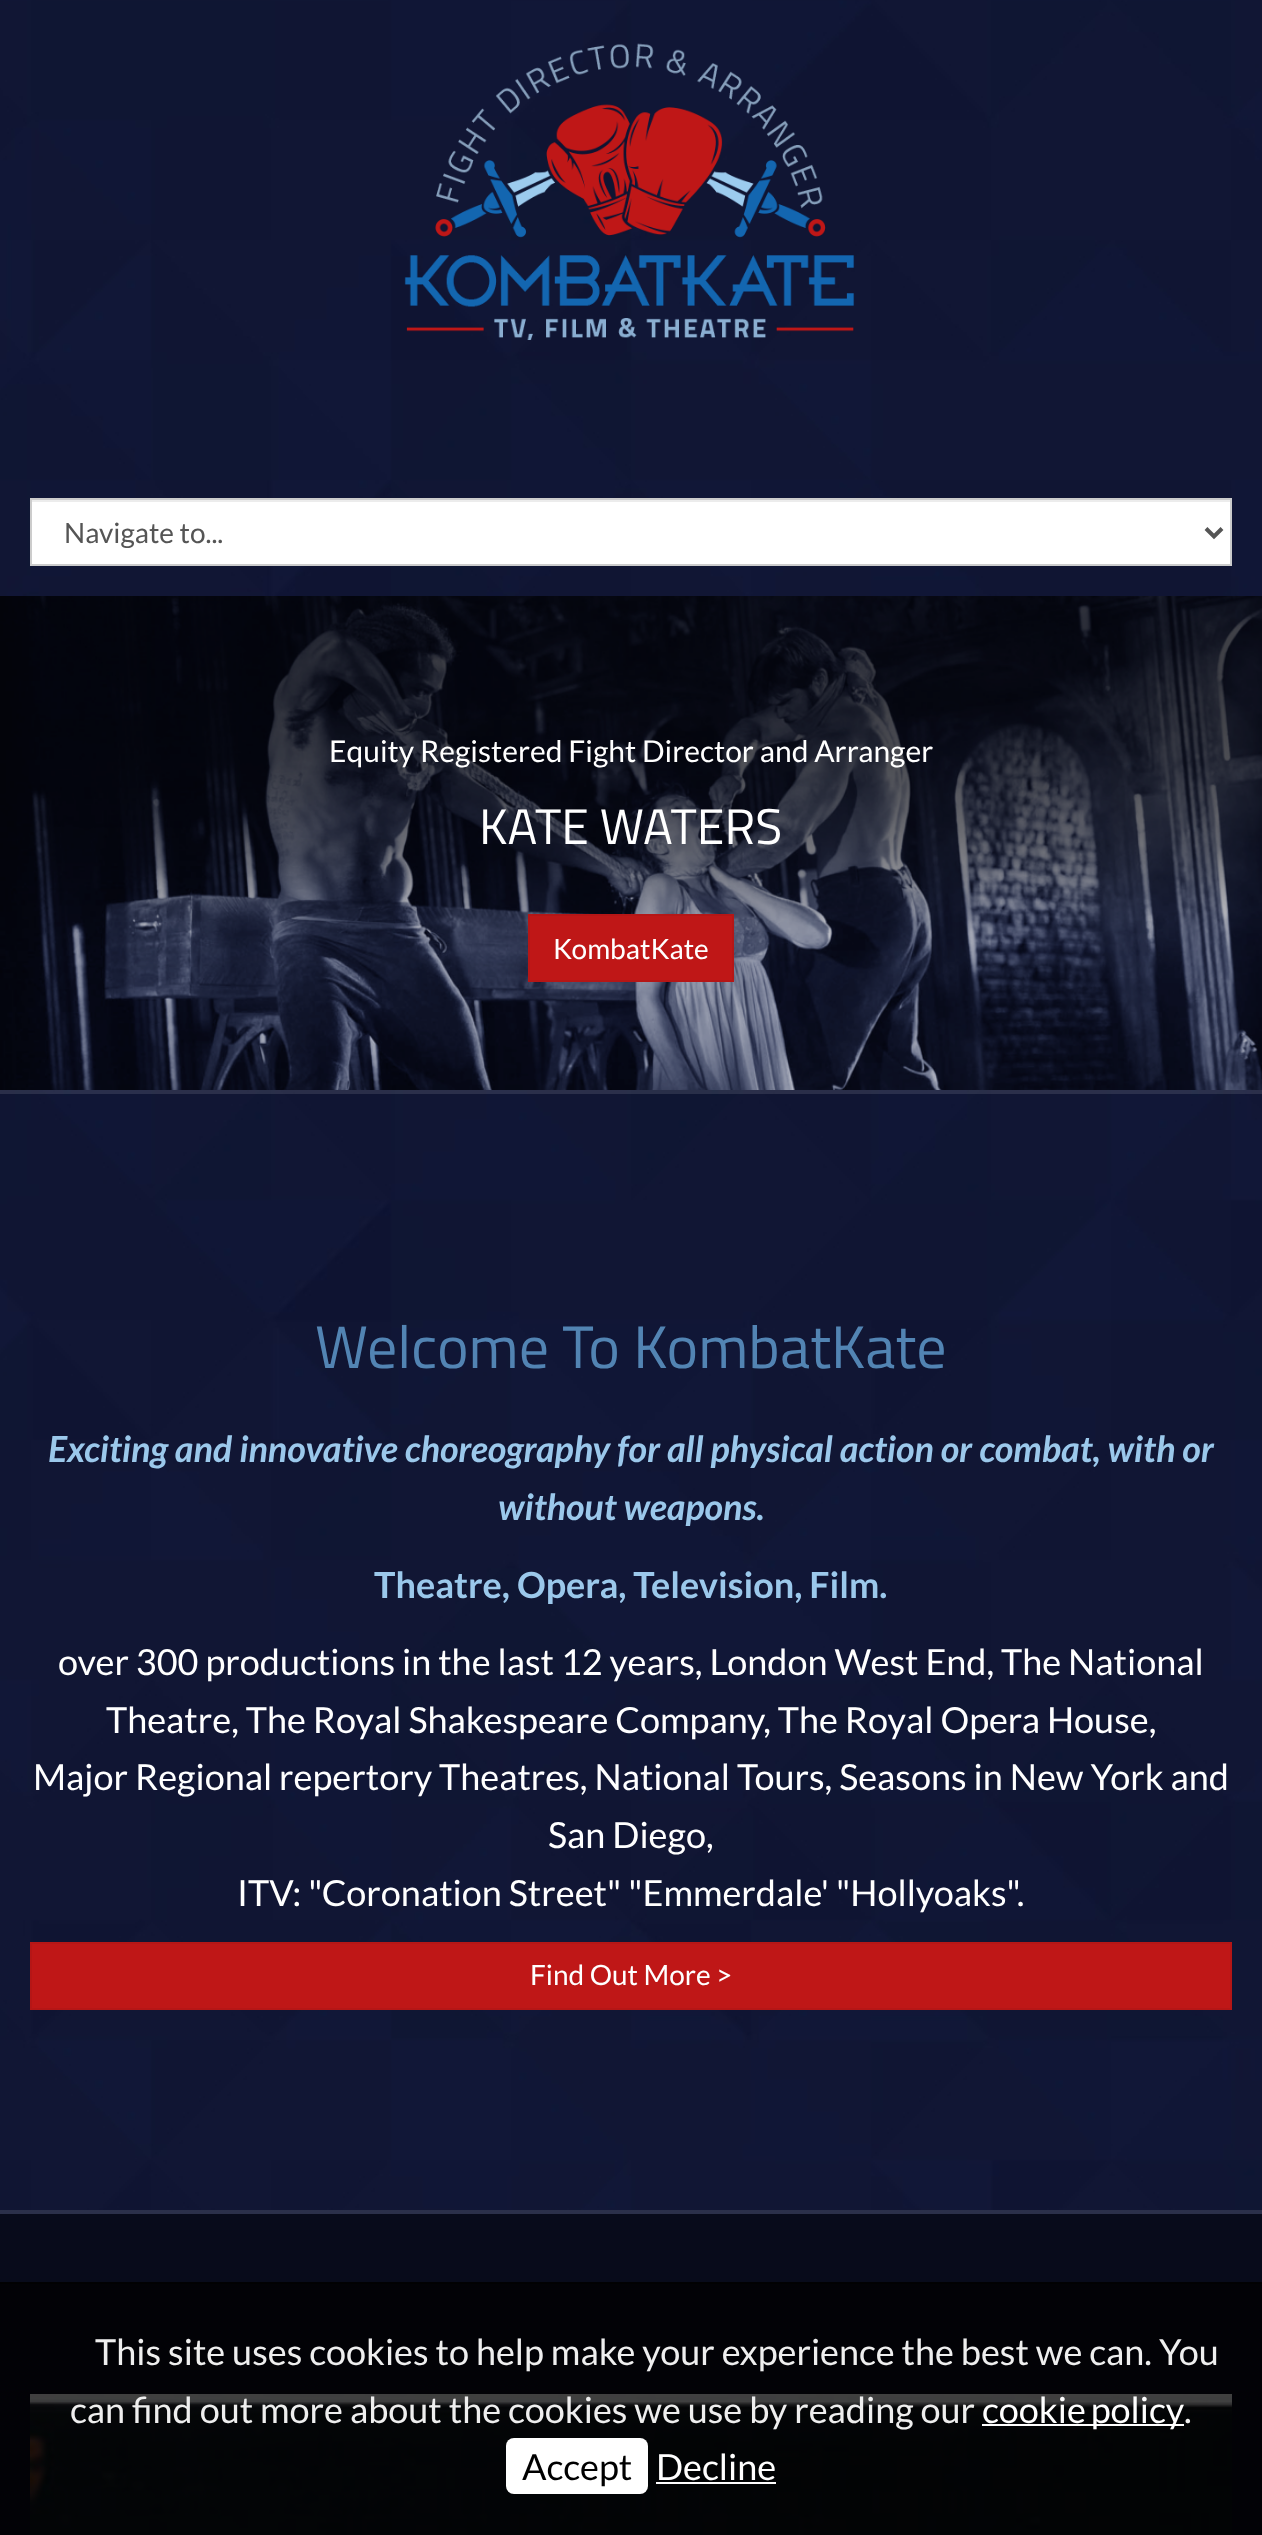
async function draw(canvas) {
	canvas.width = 1262;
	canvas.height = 2535;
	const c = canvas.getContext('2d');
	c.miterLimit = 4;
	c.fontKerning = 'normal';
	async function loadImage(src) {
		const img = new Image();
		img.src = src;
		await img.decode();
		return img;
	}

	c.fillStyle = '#fff';
	c.fillRect(0, 0, 1262, 2535);
	c.drawImage(await loadImage('img1.png'), 0, 0, 1262, 2210);
	c.drawImage(await loadImage('img2.png'), 404, 43, 451, 297);
	c.fillRect(32, 502, 1198, 62);
	c.fillStyle = '#ececec';
	c.fillRect(32, 500, 1198, 2);
	c.strokeStyle = '#ccc';
	c.lineWidth = 2;
	c.strokeRect(31, 499, 1200, 66);
	c.beginPath();
	c.moveTo(1206, 528.5);
	c.lineTo(1214, 536.5);
	c.lineTo(1222, 528.5);
	c.strokeStyle = '#555';
	c.lineWidth = 4;
	c.stroke();
	c.font = '28px Lato';
	c.fillStyle = '#555';
	c.fillText('Navigate to...', 64, 543);
	c.fillStyle = '#ffffff1c';
	c.fillRect(0, 1090, 1262, 4);
	c.drawImage(await loadImage('img3.png'), 0, 596, 1262, 494);
	c.font = '30px Lato';
	c.fillStyle = '#fff';
	c.fillText('Equity Registered Fight Director and Arranger', 329, 762);
	c.font = '50px Titillium Web';
	c.fillText('KATE WATERS', 479, 844);
	c.fillStyle = '#bf1717';
	c.beginPath();
	c.rect(529, 915, 204, 66);
	c.fill();
	c.strokeStyle = '#b51616';
	c.lineWidth = 2;
	c.stroke();
	c.font = '28px Lato';
	c.fillStyle = '#fff';
	c.fillText('KombatKate', 553, 959);
	c.font = '60px Titillium Web';
	c.fillStyle = '#5284b3';
	c.fillText('Welcome To KombatKate', 315, 1368);
	c.font = 'italic bold 36px Lato';
	c.fillStyle = '#9bc8eb';
	c.fillText('Exciting and innovative choreography for all physical action or combat, with or', 48, 1462);
	c.fillText('without weapons.', 498, 1520);
	c.font = 'bold 36px Lato';
	c.fillText('Theatre, Opera, Television, Film.', 374, 1598);
	c.font = '36px Lato';
	c.fillStyle = '#fff';
	for (const [text, x, y] of [
		['over 300 productions in the last 12 years, London West End, The National', 58, 1675],
		['Theatre, The Royal Shakespeare Company, The Royal Opera House,', 106, 1733],
		['Major Regional repertory Theatres, National Tours, Seasons in New York and', 33, 1790],
		['San Diego,', 548, 1848],
		['ITV: "Coronation Street" "Emmerdale\' "Hollyoaks".', 237, 1906],
	]) {
		c.fillText(text, x, y);
	}
	c.fillStyle = '#bf1717';
	c.beginPath();
	c.rect(31, 1943, 1200, 66);
	c.fill();
	c.stroke();
	c.font = '28px Lato';
	c.fillStyle = '#fff';
	c.fillText('Find Out More >', 530, 1985);
	c.fillStyle = '#080b1b';
	c.fillRect(0, 2214, 1262, 321);
	c.fillStyle = '#2b304a';
	c.fillRect(0, 2210, 1262, 4);
	c.drawImage(await loadImage('img4.png'), 30, 2394, 1202, 141);
	c.fillStyle = '#000000bf';
	c.fillRect(0, 2284, 1262, 251);
	c.fillStyle = '#010102';
	c.fillRect(0, 2282, 1262, 2);
	c.font = '36px Lato';
	c.fillStyle = '#eee';
	c.fillText('This site uses cookies to help make your experience the best we can. You', 95, 2365);
	c.fillText('can find out more about the cookies we use by reading our', 70, 2423);
	c.fillStyle = '#fff';
	c.fillRect(982, 2424, 202, 2);
	c.wordSpacing = '-2px';
	c.fillText('cookie policy', 982, 2423);
	c.wordSpacing = '0px';
	c.fillStyle = '#eee';
	c.fillText('.', 1184, 2423);
	c.fillStyle = '#fff';
	c.beginPath();
	c.roundRect(506, 2438, 142, 56, 8);
	c.fill();
	c.fillStyle = '#000';
	c.fillText('Accept', 522, 2480);
	c.fillStyle = '#fff';
	c.fillText('Decline', 656, 2480);
	c.fillRect(656, 2482, 120, 2);
}

draw(document.querySelector('canvas'));
